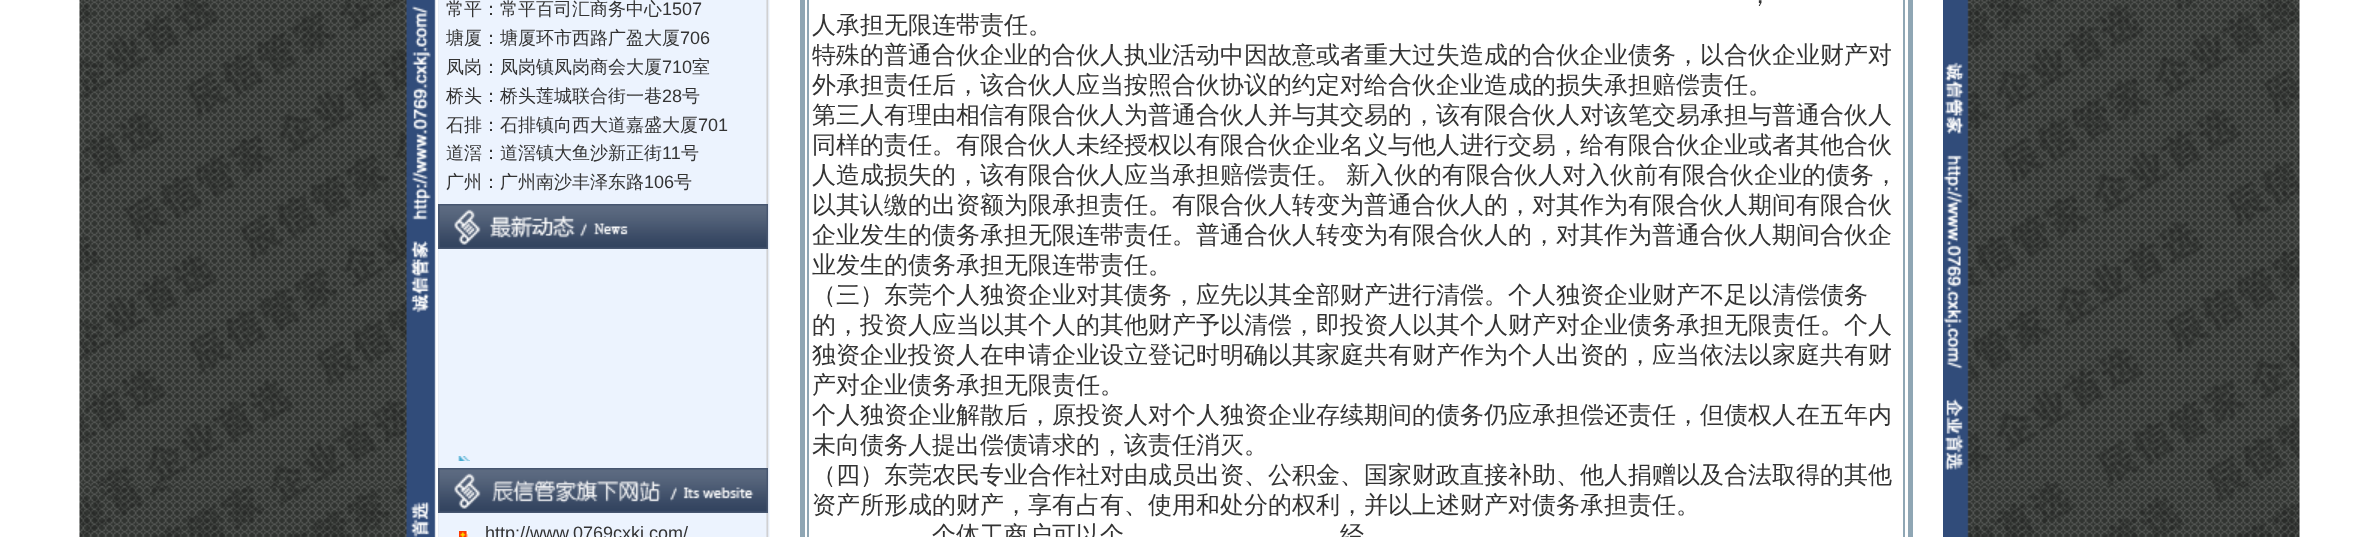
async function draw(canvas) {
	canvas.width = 2379;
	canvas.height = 537;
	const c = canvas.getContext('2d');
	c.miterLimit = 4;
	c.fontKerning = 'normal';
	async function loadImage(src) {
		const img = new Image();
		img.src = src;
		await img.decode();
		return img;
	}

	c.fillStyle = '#fff';
	c.fillRect(0, 0, 2379, 537);
	c.drawImage(await loadImage('img1.png'), 79, 0, 2221, 537);
	c.fillRect(1939, 0, 4, 537);
	c.drawImage(await loadImage('img2.png'), 438, 0, 332, 537);
	c.font = '500 18px WenQuanYi Zen Hei';
	c.fillStyle = '#333';
	c.fillText('常平：常平百司汇商务中心', 446, 15);
	c.font = '18px Liberation Sans';
	c.fillText('1507', 662, 15);
	c.font = '500 18px WenQuanYi Zen Hei';
	c.fillText('塘厦：塘厦环市西路广盈大厦', 446, 44);
	c.font = '18px Liberation Sans';
	c.fillText('706', 680, 44);
	c.font = '500 18px WenQuanYi Zen Hei';
	c.fillText('凤岗：凤岗镇凤岗商会大厦', 446, 73);
	c.font = '18px Liberation Sans';
	c.fillText('710', 662, 73);
	c.font = '500 18px WenQuanYi Zen Hei';
	c.fillText('室', 692, 73);
	c.fillText('桥头：桥头莲城联合街一巷', 446, 102);
	c.font = '18px Liberation Sans';
	c.fillText('28', 662, 102);
	c.font = '500 18px WenQuanYi Zen Hei';
	c.fillText('号', 682, 102);
	c.fillText('石排：石排镇向西大道嘉盛大厦', 446, 131);
	c.font = '18px Liberation Sans';
	c.fillText('701', 698, 131);
	c.font = '500 18px WenQuanYi Zen Hei';
	c.fillText('道滘：道滘镇大鱼沙新正街', 446, 159);
	c.font = '18px Liberation Sans';
	c.fillText('11', 662, 159);
	c.font = '500 18px WenQuanYi Zen Hei';
	c.fillText('号', 681, 159);
	c.fillText('广州：广州南沙丰泽东路', 446, 188);
	c.font = '18px Liberation Sans';
	c.fillText('106', 644, 188);
	c.font = '500 18px WenQuanYi Zen Hei';
	c.fillText('号', 674, 188);
	c.drawImage(await loadImage('img3.png'), 438, 204, 330, 45);
	c.drawImage(await loadImage('img4.png'), 458, 456, 12, 5);
	c.drawImage(await loadImage('img5.png'), 438, 468, 330, 45);
	c.drawImage(await loadImage('img6.png'), 459, 531, 9, 6);
	c.font = '18px Liberation Sans';
	c.fillText('http://www.0769cxkj.com/', 485, 539);
	c.strokeStyle = '#8fa6b4';
	c.lineWidth = 5;
	c.strokeRect(802.5, -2.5, 1108, 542);
	c.lineWidth = 2;
	c.strokeRect(808, -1, 1096, 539);
	c.font = '500 24px WenQuanYi Zen Hei';
	for (const [text, x, y] of [
		['，', 1748, 3],
		['人承担无限连带责任。', 812, 33],
		['特殊的普通合伙企业的合伙人执业活动中因故意或者重大过失造成的合伙企业债务，以合伙企业财产对', 812, 63],
		['外承担责任后，该合伙人应当按照合伙协议的约定对给合伙企业造成的损失承担赔偿责任。', 812, 93],
		['第三人有理由相信有限合伙人为普通合伙人并与其交易的，该有限合伙人对该笔交易承担与普通合伙人', 812, 123],
		['同样的责任。有限合伙人未经授权以有限合伙企业名义与他人进行交易，给有限合伙企业或者其他合伙', 812, 153],
		['人造成损失的，该有限合伙人应当承担赔偿责任。', 812, 183],
		['新入伙的有限合伙人对入伙前有限合伙企业的债务，', 1346, 183],
		['以其认缴的出资额为限承担责任。有限合伙人转变为普通合伙人的，对其作为有限合伙人期间有限合伙', 812, 213],
		['企业发生的债务承担无限连带责任。普通合伙人转变为有限合伙人的，对其作为普通合伙人期间合伙企', 812, 243],
		['业发生的债务承担无限连带责任。', 812, 273],
		['（三）东莞个人独资企业对其债务，应先以其全部财产进行清偿。个人独资企业财产不足以清偿债务', 812, 303],
		['的，投资人应当以其个人的其他财产予以清偿，即投资人以其个人财产对企业债务承担无限责任。个人', 812, 333],
		['独资企业投资人在申请企业设立登记时明确以其家庭共有财产作为个人出资的，应当依法以家庭共有财', 812, 363],
		['产对企业债务承担无限责任。', 812, 393],
		['个人独资企业解散后，原投资人对个人独资企业存续期间的债务仍应承担偿还责任，但债权人在五年内', 812, 423],
		['未向债务人提出偿债请求的，该责任消灭。', 812, 453],
		['（四）东莞农民专业合作社对由成员出资、公积金、国家财政直接补助、他人捐赠以及合法取得的其他', 812, 483],
		['资产所形成的财产，享有占有、使用和处分的权利，并以上述财产对债务承担责任。', 812, 513],
		['个体工商户可以个', 932, 543],
		['经', 1340, 543],
	]) {
		c.fillText(text, x, y);
	}
}

draw(document.querySelector('canvas'));
